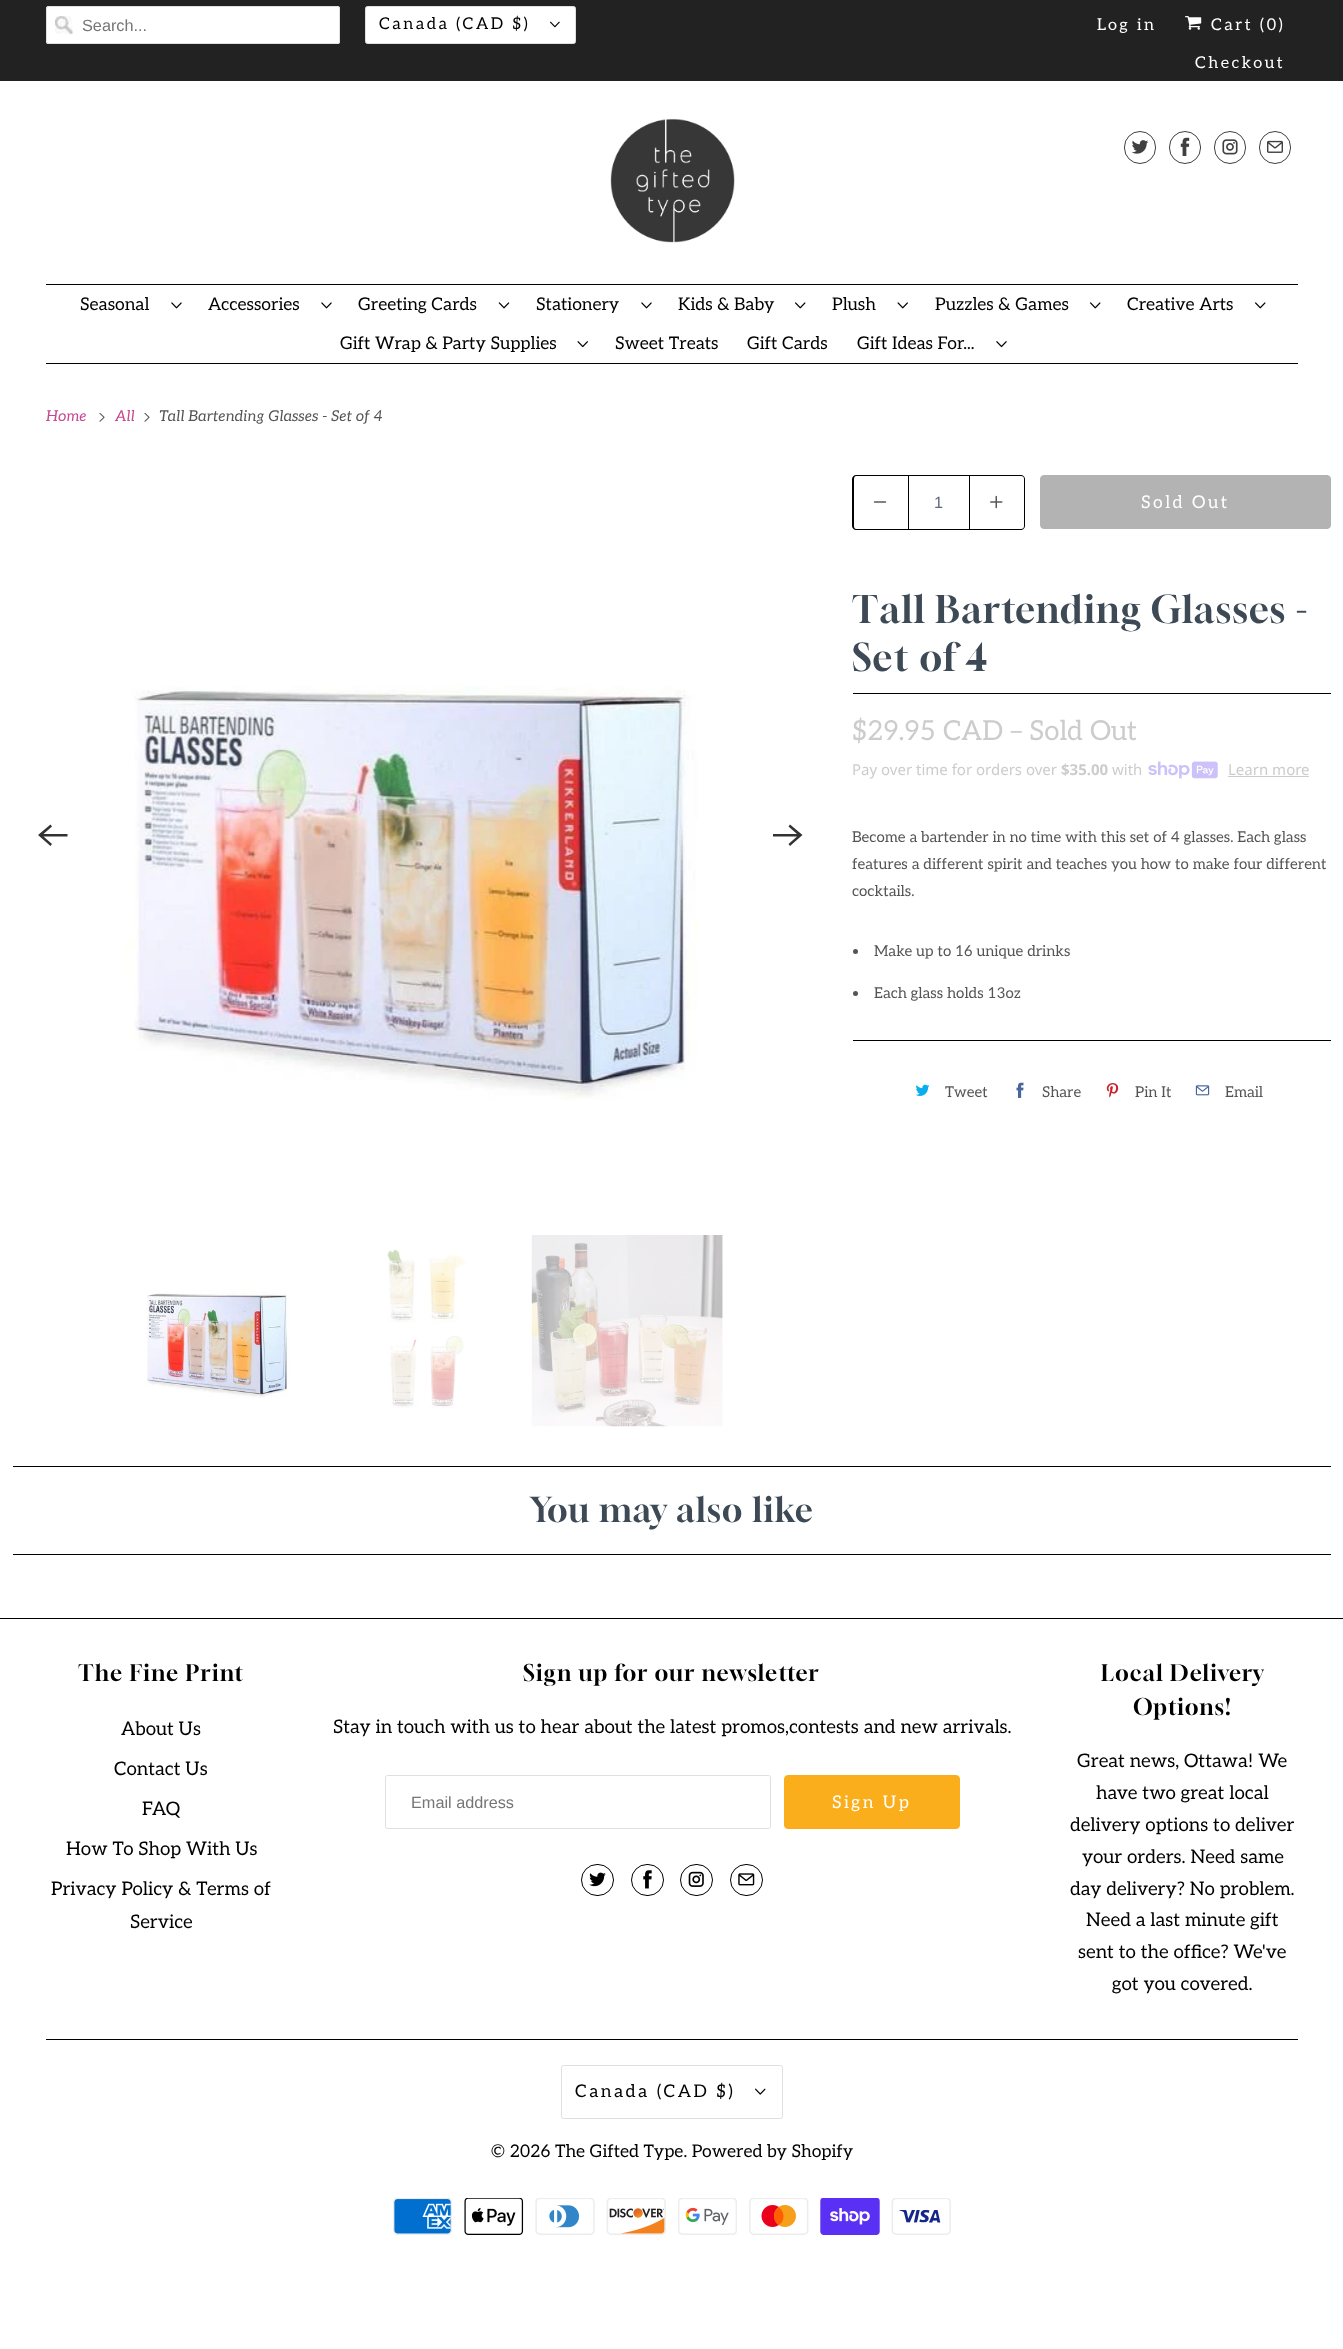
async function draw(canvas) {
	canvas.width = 1343;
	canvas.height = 2349;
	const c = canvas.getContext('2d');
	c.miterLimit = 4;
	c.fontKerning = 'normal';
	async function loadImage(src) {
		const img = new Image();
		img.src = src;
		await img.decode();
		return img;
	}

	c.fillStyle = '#fff';
	c.fillRect(0, 0, 1343, 2349);
	c.fillStyle = '#222';
	c.fillRect(0, 0, 1343, 81);
	c.fillStyle = '#fff';
	c.beginPath();
	c.roundRect(46, 6, 294, 38, 2.5);
	c.fill();
	c.drawImage(await loadImage('img1.png'), 55, 16, 18, 18);
	c.beginPath();
	c.roundRect(46.5, 6.5, 293, 37, 2);
	c.strokeStyle = '#dfdfdf';
	c.stroke();
	c.font = '16.25px Liberation Sans';
	c.fillStyle = '#757575';
	c.fillText('Search...', 82, 31);
	c.fillStyle = '#fff';
	c.beginPath();
	c.roundRect(365.5, 6.5, 210, 37, 2);
	c.fill();
	c.stroke();
	c.letterSpacing = '2.5px';
	c.font = '16.25px Aleo';
	c.fillStyle = '#000';
	c.fillText('Canada (CAD $)', 379, 29);
	c.drawImage(await loadImage('img2.png'), 550, 21, 10, 7);
	c.fillStyle = '#fff';
	c.fillText('Log in', 1097, 30);
	c.drawImage(await loadImage('img3.png'), 1185, 16, 17, 14);
	c.fillText('Cart (0)', 1211, 30);
	c.fillText('Checkout', 1195, 68);
	c.drawImage(await loadImage('img4.png'), 610, 118, 125, 125);
	c.beginPath();
	c.roundRect(1124.5, 131.5, 31, 32, 15.5);
	c.strokeStyle = '#404040';
	c.stroke();
	c.drawImage(await loadImage('img5.png'), 1131, 140, 18, 14);
	c.beginPath();
	c.roundRect(1169.5, 131.5, 31, 32, 15.5);
	c.stroke();
	c.drawImage(await loadImage('img6.png'), 1180, 137, 10, 19);
	c.beginPath();
	c.roundRect(1214.5, 131.5, 31, 32, 15.5);
	c.stroke();
	c.drawImage(await loadImage('img7.png'), 1222, 139, 16, 16);
	c.beginPath();
	c.roundRect(1259.5, 131.5, 31, 32, 15.5);
	c.stroke();
	c.drawImage(await loadImage('img8.png'), 1267, 140, 16, 13);
	c.fillStyle = '#020000';
	c.fillRect(46, 284, 1252, 1);
	c.fillRect(46, 363, 1252, 1);
	c.letterSpacing = '0px';
	c.font = '17.5px Aleo';
	c.fillStyle = '#000';
	c.fillText('Seasonal', 80, 310);
	c.drawImage(await loadImage('img9.png'), 171, 302, 11, 7);
	c.fillText('Accessories', 208, 310);
	c.drawImage(await loadImage('img9.png'), 321, 302, 11, 7);
	c.fillText('Greeting Cards', 358, 310);
	c.drawImage(await loadImage('img10.png'), 498, 302, 12, 7);
	c.fillText('Stationery', 536, 310);
	c.drawImage(await loadImage('img9.png'), 641, 302, 11, 7);
	c.fillText('Kids & Baby', 678, 310);
	c.drawImage(await loadImage('img11.png'), 795, 302, 11, 7);
	c.fillText('Plush', 832, 310);
	c.drawImage(await loadImage('img12.png'), 897, 302, 11, 7);
	c.fillText('Puzzles & Games', 935, 310);
	c.drawImage(await loadImage('img11.png'), 1090, 302, 11, 7);
	c.fillText('Creative Arts', 1127, 310);
	c.drawImage(await loadImage('img11.png'), 1255, 302, 11, 7);
	c.fillText('Gift Wrap & Party Supplies', 340, 349);
	c.drawImage(await loadImage('img13.png'), 577, 341, 11, 7);
	for (const [text, x, y] of [
		['Sweet Treats', 615, 349],
		['Gift Cards', 747, 349],
		['Gift Ideas For...', 857, 349],
	]) {
		c.fillText(text, x, y);
	}
	c.drawImage(await loadImage('img14.png'), 996, 341, 11, 7);
	c.font = 'italic 15px Aleo';
	c.fillStyle = '#c64891';
	c.fillText('Home', 46, 421);
	c.drawImage(await loadImage('img15.png'), 99, 412, 6, 10);
	c.fillText('All', 115, 421);
	c.drawImage(await loadImage('img15.png'), 144, 412, 6, 10);
	c.fillStyle = '#555';
	c.fillText('Tall Bartending Glasses - Set of 4', 159, 421);
	c.fillStyle = '#333';
	c.beginPath();
	c.moveTo(67.5, 834);
	c.lineTo(43.5, 834);
	c.lineTo(52, 826.5);
	c.lineTo(50.5, 824.5);
	c.lineTo(38, 835);
	c.lineTo(50.5, 846);
	c.lineTo(52, 844);
	c.lineTo(43.5, 836.5);
	c.lineTo(67.5, 836.5);
	c.closePath();
	c.fill();
	c.drawImage(await loadImage('img16.png'), 125, 685, 573, 415);
	c.beginPath();
	c.moveTo(773, 836.5);
	c.lineTo(797, 836.5);
	c.lineTo(788.5, 844);
	c.lineTo(790, 846);
	c.lineTo(802.5, 835);
	c.lineTo(790, 824.5);
	c.lineTo(788.5, 826.5);
	c.lineTo(797, 834);
	c.lineTo(773, 834);
	c.closePath();
	c.fill();
	c.drawImage(await loadImage('img17.png'), 145, 1291, 145, 107);
	c.drawImage(await loadImage('img18.png'), 387, 1249, 80, 159);
	c.drawImage(await loadImage('img19.png'), 531, 1235, 192, 192);
	c.fillStyle = '#020000';
	c.beginPath();
	c.moveTo(856, 475);
	c.lineTo(908, 475);
	c.lineTo(908, 530);
	c.lineTo(856, 530);
	c.bezierCurveTo(854, 530, 852, 528, 852, 526);
	c.lineTo(852, 479);
	c.bezierCurveTo(852, 477, 854, 475, 856, 475);
	c.closePath();
	c.moveTo(856, 476);
	c.lineTo(908, 476);
	c.lineTo(908, 529);
	c.lineTo(856, 529);
	c.bezierCurveTo(855, 529, 854, 528, 854, 526);
	c.lineTo(854, 479);
	c.bezierCurveTo(854, 477, 855, 476, 856, 476);
	c.closePath();
	c.fill('evenodd');
	c.drawImage(await loadImage('img20.png'), 873, 501, 14, 2);
	c.strokeStyle = '#020000';
	c.strokeRect(908.5, 475.5, 61, 54);
	c.font = '16.25px Liberation Sans';
	c.fillStyle = '#5f6a7d';
	c.fillText('1', 934, 508);
	c.fillStyle = '#020000';
	c.beginPath();
	c.moveTo(970, 475);
	c.lineTo(1021, 475);
	c.bezierCurveTo(1023, 475, 1025, 477, 1025, 479);
	c.lineTo(1025, 526);
	c.bezierCurveTo(1025, 528, 1023, 530, 1021, 530);
	c.lineTo(970, 530);
	c.closePath();
	c.moveTo(970, 476);
	c.lineTo(1021, 476);
	c.bezierCurveTo(1023, 476, 1024, 477, 1024, 479);
	c.lineTo(1024, 526);
	c.bezierCurveTo(1024, 528, 1023, 529, 1021, 529);
	c.lineTo(970, 529);
	c.closePath();
	c.fill('evenodd');
	c.drawImage(await loadImage('img21.png'), 990, 495, 13, 14);
	c.fillStyle = '#b3b3b3';
	c.beginPath();
	c.roundRect(1040.5, 475.5, 290, 53, 3.5);
	c.fill();
	c.strokeStyle = '#b3b3b3';
	c.stroke();
	c.letterSpacing = '2.5px';
	c.font = '17.5px Aleo';
	c.fillStyle = '#fff';
	c.fillText('Sold Out', 1141, 508);
	c.fillStyle = '#020000';
	c.fillRect(853, 693, 478, 1);
	c.letterSpacing = '1.25px';
	c.font = '37.5px Gloock';
	c.fillStyle = '#3d4a55';
	c.fillText('Tall Bartending Glasses -', 852, 623);
	c.fillText('Set of 4', 852, 671);
	c.letterSpacing = '0px';
	c.font = '27.5px Aleo';
	c.fillStyle = '#ccc';
	c.fillText('$29.95 CAD', 852, 740);
	c.fillText('– Sold Out', 1010, 740);
	c.font = '15px Noto Sans';
	c.fillText('Pay over time for orders over', 852, 775);
	c.font = 'bold 15px Noto Sans';
	c.fillText('$35.00', 1061, 775);
	c.font = '15px Noto Sans';
	c.fillText('with', 1112, 775);
	c.drawImage(await loadImage('img22.png'), 1148, 761, 70, 18);
	c.fillText('Learn more', 1228, 775);
	c.fillRect(1228, 776, 81, 1);
	c.font = '15px Aleo';
	c.fillStyle = '#555';
	for (const [text, x, y] of [
		['Become a bartender in no time with this set of 4 glasses. Each glass', 852, 842],
		['features a different spirit and teaches you how to make four different', 852, 869],
		['cocktails.', 852, 896],
	]) {
		c.fillText(text, x, y);
	}
	c.beginPath();
	c.arc(855.5, 951.5, 2.5, 0, 2 * Math.PI);
	c.fill();
	c.fillText('Make up to 16 unique drinks', 874, 956);
	c.beginPath();
	c.arc(855.5, 993.5, 2.5, 0, 2 * Math.PI);
	c.fill();
	c.fillText('Each glass holds 13oz', 874, 998);
	c.fillStyle = '#020000';
	c.fillRect(853, 1040, 478, 1);
	c.drawImage(await loadImage('img23.png'), 915, 1084, 15, 12);
	c.fillStyle = '#555';
	c.fillText('Tweet', 945, 1097);
	c.drawImage(await loadImage('img24.png'), 1016, 1082, 8, 16);
	c.fillText('Share', 1042, 1097);
	c.drawImage(await loadImage('img25.png'), 1106, 1083, 13, 15);
	c.fillText('Pin It', 1135, 1097);
	c.drawImage(await loadImage('img26.png'), 1195, 1085, 15, 11);
	c.fillText('Email', 1225, 1097);
	c.fillStyle = '#020000';
	c.fillRect(13, 1466, 1318, 1);
	c.fillRect(13, 1554, 1318, 1);
	c.letterSpacing = '1.25px';
	c.font = '33.75px Gloock';
	c.fillStyle = '#3d4a55';
	c.fillText('You may also like', 530, 1522);
	c.fillStyle = '#000';
	c.fillRect(0, 1618, 1343, 1);
	c.font = '22.5px Gloock';
	c.fillText('The Fine Print', 78, 1681);
	c.letterSpacing = '0px';
	c.font = '18.75px Aleo';
	for (const [text, x, y] of [
		['About Us', 121, 1735],
		['Contact Us', 114, 1775],
		['FAQ', 142, 1815],
		['How To Shop With Us', 66, 1855],
		['Privacy Policy & Terms of', 51, 1895],
		['Service', 130, 1928],
	]) {
		c.fillText(text, x, y);
	}
	c.letterSpacing = '1.25px';
	c.font = '22.5px Gloock';
	c.fillText('Sign up for our newsletter', 523, 1681);
	c.letterSpacing = '0px';
	c.font = '18.75px Aleo';
	c.fillText('Stay in touch with us to hear about the latest promos,contests and new arrivals.', 333, 1733);
	c.beginPath();
	c.roundRect(385.5, 1775.5, 385, 53, 2);
	c.strokeStyle = '#dfdfdf';
	c.stroke();
	c.font = '16.25px Liberation Sans';
	c.fillStyle = '#757575';
	c.fillText('Email address', 411, 1808);
	c.fillStyle = '#faae1c';
	c.beginPath();
	c.roundRect(784.5, 1775.5, 175, 53, 3.5);
	c.fill();
	c.strokeStyle = '#faae1c';
	c.stroke();
	c.letterSpacing = '2.5px';
	c.font = '17.5px Aleo';
	c.fillStyle = '#fff';
	c.fillText('Sign Up', 832, 1808);
	c.beginPath();
	c.roundRect(581.5, 1864.5, 32, 31, 15.5);
	c.strokeStyle = '#000';
	c.stroke();
	c.drawImage(await loadImage('img27.png'), 589, 1872, 17, 15);
	c.beginPath();
	c.roundRect(631.5, 1864.5, 32, 31, 15.5);
	c.stroke();
	c.drawImage(await loadImage('img28.png'), 643, 1870, 9, 19);
	c.beginPath();
	c.roundRect(680.5, 1864.5, 32, 31, 15.5);
	c.stroke();
	c.drawImage(await loadImage('img29.png'), 688, 1871, 16, 16);
	c.beginPath();
	c.roundRect(730.5, 1864.5, 32, 31, 15.5);
	c.stroke();
	c.drawImage(await loadImage('img30.png'), 738, 1873, 17, 13);
	c.letterSpacing = '1.25px';
	c.font = '22.5px Gloock';
	c.fillStyle = '#000';
	c.fillText('Local Delivery', 1101, 1681);
	c.fillText('Options!', 1133, 1715);
	c.letterSpacing = '0px';
	c.font = '18.75px Aleo';
	for (const [text, x, y] of [
		['Great news, Ottawa! We', 1077, 1767],
		['have two great local', 1096, 1799],
		['delivery options to deliver', 1070, 1831],
		['your orders. Need same', 1082, 1863],
		['day delivery? No problem.', 1070, 1895],
		['Need a last minute gift', 1086, 1926],
		['sent to the office? We\'ve', 1078, 1958],
		['got you covered.', 1112, 1990],
	]) {
		c.fillText(text, x, y);
	}
	c.fillRect(46, 2039, 1252, 1);
	c.beginPath();
	c.roundRect(561.5, 2065.5, 221, 53, 2);
	c.strokeStyle = '#dfdfdf';
	c.stroke();
	c.letterSpacing = '2.5px';
	c.font = '17.5px Aleo';
	c.fillText('Canada (CAD $)', 575, 2097);
	c.drawImage(await loadImage('img31.png'), 755, 2088, 11, 7);
	c.letterSpacing = '0px';
	c.fillText('© 2026 The Gifted Type. Powered by Shopify', 491, 2157);
	c.drawImage(await loadImage('img32.png'), 393, 2198, 59, 37);
	c.drawImage(await loadImage('img33.png'), 464, 2198, 60, 37);
	c.drawImage(await loadImage('img34.png'), 535, 2198, 60, 37);
	c.drawImage(await loadImage('img35.png'), 606, 2198, 60, 37);
	c.drawImage(await loadImage('img36.png'), 678, 2198, 59, 37);
	c.drawImage(await loadImage('img37.png'), 749, 2198, 60, 37);
	c.drawImage(await loadImage('img38.png'), 820, 2198, 60, 37);
	c.drawImage(await loadImage('img39.png'), 891, 2198, 60, 37);
}

draw(document.querySelector('canvas'));
